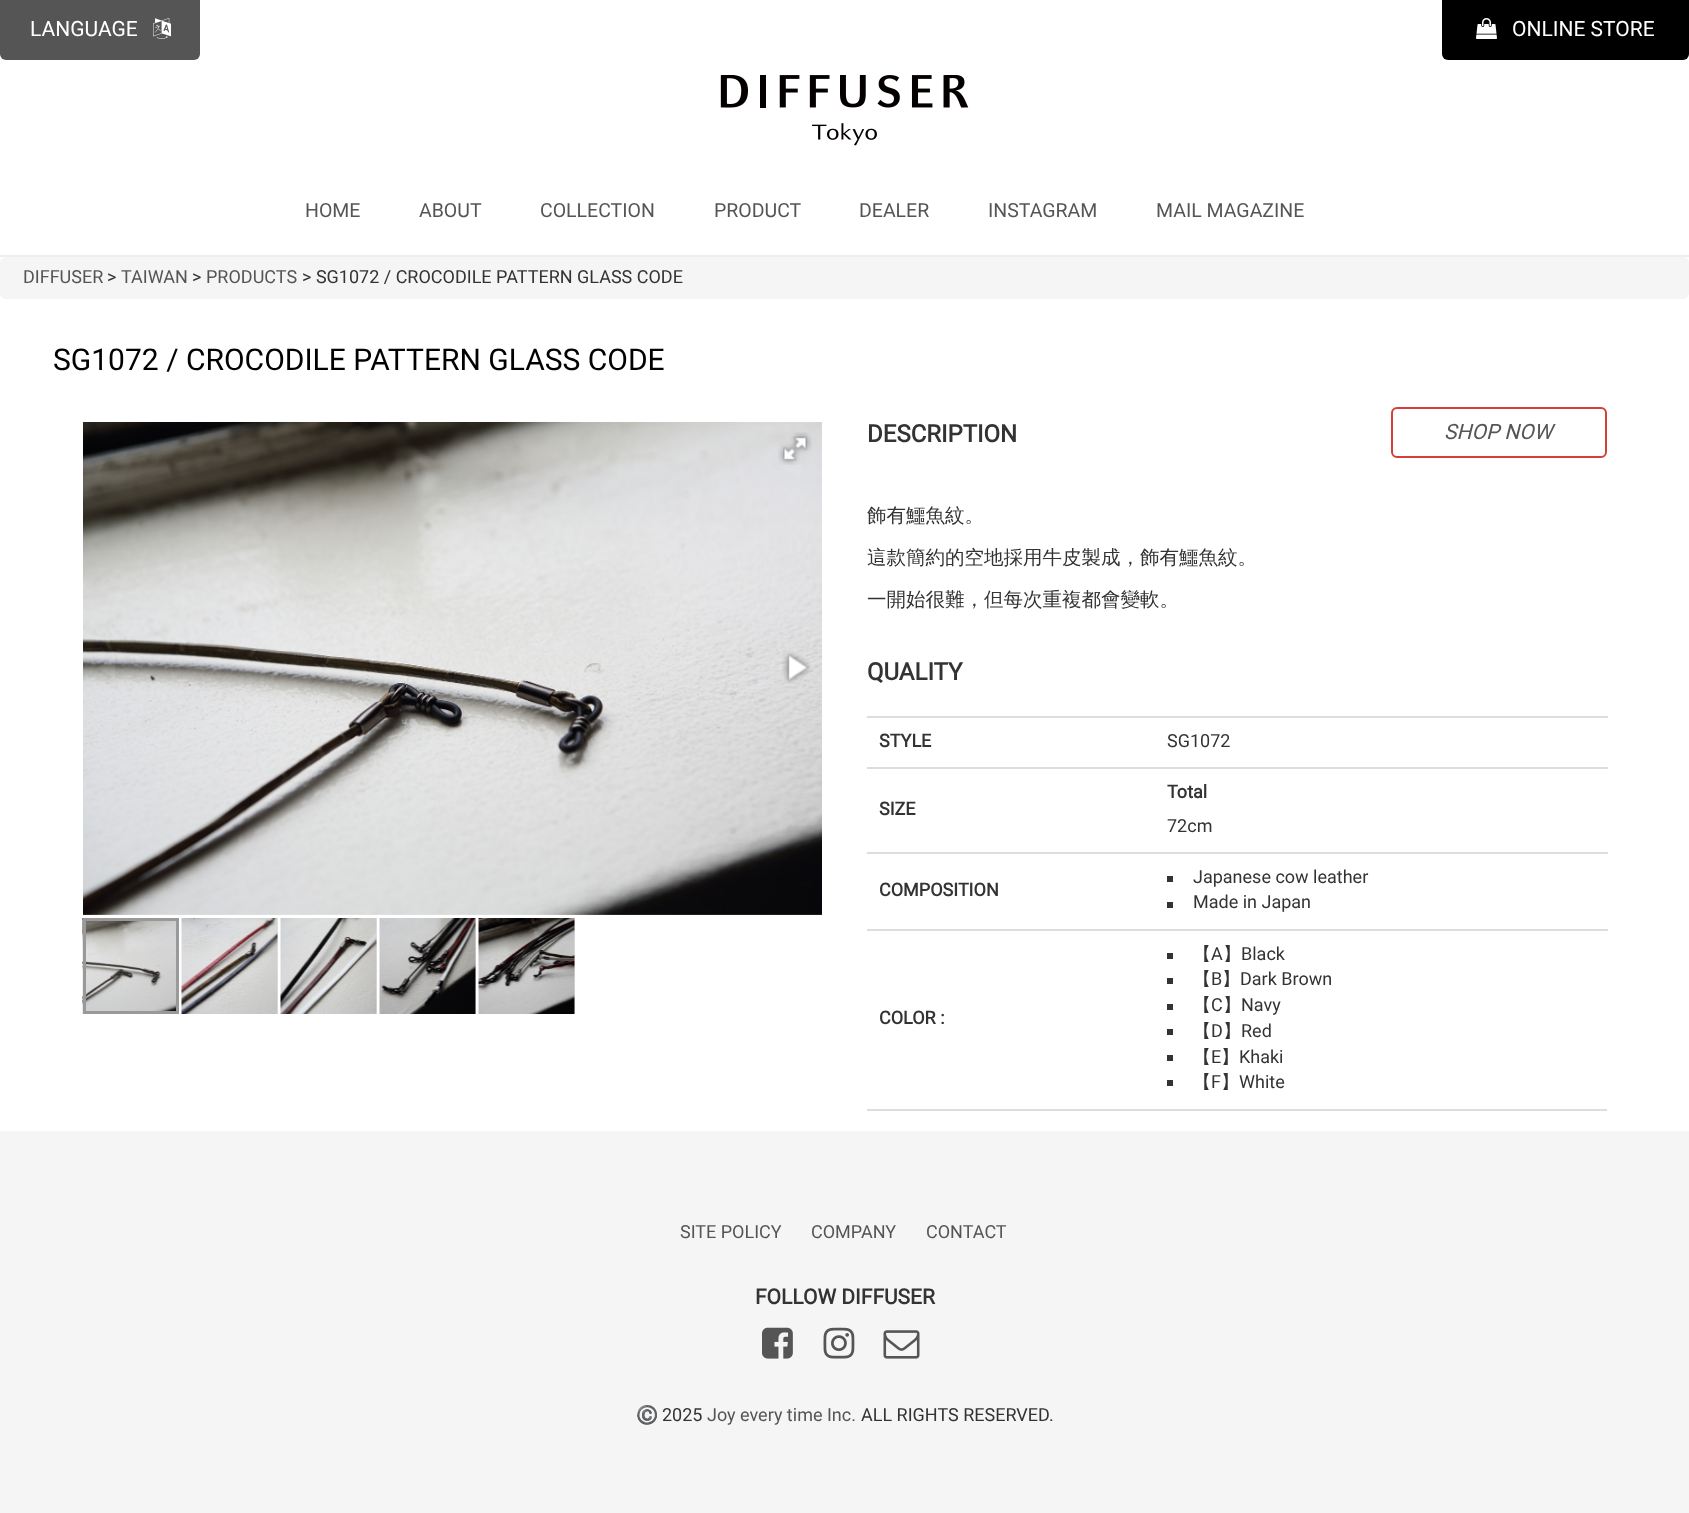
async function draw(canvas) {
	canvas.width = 1689;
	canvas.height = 1513;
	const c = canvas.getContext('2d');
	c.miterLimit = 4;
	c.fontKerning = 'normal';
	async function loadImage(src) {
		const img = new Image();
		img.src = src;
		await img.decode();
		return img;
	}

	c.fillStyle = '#fff';
	c.fillRect(0, 0, 1689, 1513);
	c.fillStyle = '#eee';
	c.fillRect(0, 255, 1689, 2);
	c.fillStyle = '#555';
	c.beginPath();
	c.roundRect(0, 0, 200, 60, [0, 0, 6, 6]);
	c.fill();
	c.font = '21px Roboto';
	c.fillStyle = '#fff';
	c.fillText('LANGUAGE', 30, 36);
	c.drawImage(await loadImage('img1.png'), 153, 18, 18, 21);
	c.fillStyle = '#000';
	c.beginPath();
	c.roundRect(1442, 0, 247, 60, [0, 0, 6, 6]);
	c.fill();
	c.drawImage(await loadImage('img2.png'), 1476, 18, 21, 21);
	c.fillStyle = '#fff';
	c.fillText('ONLINE STORE', 1512, 36);
	c.drawImage(await loadImage('img3.png'), 720, 75, 249, 71);
	c.font = '19.5px Roboto';
	c.fillStyle = '#555';
	for (const [text, x, y] of [
		['HOME', 305, 217],
		['ABOUT', 419, 217],
		['COLLECTION', 540, 217],
		['PRODUCT', 714, 217],
		['DEALER', 859, 217],
		['INSTAGRAM', 988, 217],
		['MAIL MAGAZINE', 1156, 217],
	]) {
		c.fillText(text, x, y);
	}
	c.fillStyle = '#f5f5f5';
	c.beginPath();
	c.roundRect(0, 257, 1689, 42, 6);
	c.fill();
	c.font = '18px Roboto';
	c.fillStyle = '#555';
	c.fillText('DIFFUSER', 23, 283);
	c.fillStyle = '#333';
	c.fillText('>', 107, 283);
	c.fillStyle = '#555';
	c.fillText('TAIWAN', 121, 283);
	c.fillStyle = '#333';
	c.fillText('>', 192, 283);
	c.fillStyle = '#555';
	c.fillText('PRODUCTS', 206, 283);
	c.fillStyle = '#333';
	c.fillText('> SG1072 / CROCODILE PATTERN GLASS CODE', 302, 283);
	c.font = '30px Roboto';
	c.fillStyle = '#000';
	c.fillText('SG1072 / CROCODILE PATTERN GLASS CODE', 53, 370);
	c.drawImage(await loadImage('img4.png'), 83, 422, 739, 493);
	c.drawImage(await loadImage('img5.png'), 778, 432, 34, 33);
	c.drawImage(await loadImage('img6.png'), 98, 654, 19, 24);
	c.drawImage(await loadImage('img7.png'), 782, 651, 29, 33);
	c.drawImage(await loadImage('img8.png'), 82, 918, 94, 96);
	c.strokeStyle = '#999';
	c.lineWidth = 3;
	c.strokeRect(84.5, 919.5, 93, 93);
	c.fillStyle = '#e5e5e5';
	c.fillRect(277, 918, 1, 96);
	c.drawImage(await loadImage('img9.png'), 181, 918, 97, 96);
	c.fillRect(376, 918, 1, 96);
	c.drawImage(await loadImage('img10.png'), 280, 918, 97, 96);
	c.fillRect(475, 918, 1, 96);
	c.drawImage(await loadImage('img11.png'), 379, 918, 97, 96);
	c.fillRect(574, 918, 1, 96);
	c.drawImage(await loadImage('img12.png'), 478, 918, 97, 96);
	c.font = 'bold 24px Roboto';
	c.fillStyle = '#333';
	c.fillText('DESCRIPTION', 867, 442);
	c.beginPath();
	c.roundRect(1392, 408, 214, 49, 5);
	c.strokeStyle = '#d43f3a';
	c.lineWidth = 2;
	c.stroke();
	c.font = 'italic 21px Roboto';
	c.fillStyle = '#555';
	c.fillText('SHOP NOW', 1444, 439);
	c.font = '500 19.5px WenQuanYi Zen Hei';
	c.fillStyle = '#333';
	for (const [text, x, y] of [
		['飾有鱷魚紋。', 867, 522],
		['這款簡約的空地採用牛皮製成，飾有鱷魚紋。', 867, 564],
		['一開始很難，但每次重複都會變軟。', 867, 606],
	]) {
		c.fillText(text, x, y);
	}
	c.font = 'bold 24px Roboto';
	c.fillText('QUALITY', 867, 680);
	c.fillStyle = '#ddd';
	c.fillRect(867, 1109, 740, 2);
	c.font = 'bold 18px Roboto';
	c.fillStyle = '#333';
	c.fillText('STYLE', 879, 747);
	c.fillStyle = '#ddd';
	c.fillRect(867, 716, 741, 2);
	c.font = '18px Roboto';
	c.fillStyle = '#333';
	c.fillText('SG1072', 1167, 747);
	c.font = 'bold 18px Roboto';
	c.fillText('SIZE', 879, 815);
	c.fillStyle = '#ddd';
	c.fillRect(867, 767, 741, 2);
	c.fillStyle = '#333';
	c.fillText('Total', 1167, 798);
	c.font = '18px Roboto';
	c.fillText('72cm', 1167, 832);
	c.font = 'bold 18px Roboto';
	c.fillText('COMPOSITION', 879, 896);
	c.fillStyle = '#ddd';
	c.fillRect(867, 852, 741, 2);
	c.fillStyle = '#333';
	c.fillRect(1167, 876, 6, 6);
	c.font = '18px Roboto';
	c.fillText('Japanese cow leather', 1193, 883);
	c.fillRect(1167, 902, 6, 6);
	c.fillText('Made in Japan', 1193, 908);
	c.font = 'bold 18px Roboto';
	c.fillText('COLOR :', 879, 1024);
	c.fillStyle = '#ddd';
	c.fillRect(867, 929, 741, 2);
	c.fillStyle = '#333';
	c.fillRect(1167, 953, 6, 6);
	c.font = '500 18px WenQuanYi Zen Hei';
	c.fillText('【', 1193, 960);
	c.font = '18px Roboto';
	c.fillText('A', 1211, 960);
	c.font = '500 18px WenQuanYi Zen Hei';
	c.fillText('】', 1223, 960);
	c.font = '18px Roboto';
	c.fillText('Black', 1241, 960);
	c.fillRect(1167, 978, 6, 6);
	c.font = '500 18px WenQuanYi Zen Hei';
	c.fillText('【', 1193, 985);
	c.font = '18px Roboto';
	c.fillText('B', 1211, 985);
	c.font = '500 18px WenQuanYi Zen Hei';
	c.fillText('】', 1222, 985);
	c.font = '18px Roboto';
	c.fillText('Dark Brown', 1240, 985);
	c.fillRect(1167, 1004, 6, 6);
	c.font = '500 18px WenQuanYi Zen Hei';
	c.fillText('【', 1193, 1011);
	c.font = '18px Roboto';
	c.fillText('C', 1211, 1011);
	c.font = '500 18px WenQuanYi Zen Hei';
	c.fillText('】', 1223, 1011);
	c.font = '18px Roboto';
	c.fillText('Navy', 1241, 1011);
	c.fillRect(1167, 1029, 6, 6);
	c.font = '500 18px WenQuanYi Zen Hei';
	c.fillText('【', 1193, 1037);
	c.font = '18px Roboto';
	c.fillText('D', 1211, 1037);
	c.font = '500 18px WenQuanYi Zen Hei';
	c.fillText('】', 1223, 1037);
	c.font = '18px Roboto';
	c.fillText('Red', 1241, 1037);
	c.fillRect(1167, 1055, 6, 6);
	c.font = '500 18px WenQuanYi Zen Hei';
	c.fillText('【', 1193, 1063);
	c.font = '18px Roboto';
	c.fillText('E', 1211, 1063);
	c.font = '500 18px WenQuanYi Zen Hei';
	c.fillText('】', 1221, 1063);
	c.font = '18px Roboto';
	c.fillText('Khaki', 1239, 1063);
	c.fillRect(1167, 1080, 6, 6);
	c.font = '500 18px WenQuanYi Zen Hei';
	c.fillText('【', 1193, 1088);
	c.font = '18px Roboto';
	c.fillText('F', 1211, 1088);
	c.font = '500 18px WenQuanYi Zen Hei';
	c.fillText('】', 1221, 1088);
	c.font = '18px Roboto';
	c.fillText('White', 1239, 1088);
	c.fillStyle = '#f5f5f5';
	c.fillRect(0, 1131, 1689, 382);
	c.fillStyle = '#555';
	for (const [text, x, y] of [
		['SITE POLICY', 680, 1238],
		['COMPANY', 811, 1238],
		['CONTACT', 926, 1238],
	]) {
		c.fillText(text, x, y);
	}
	c.font = 'bold 21px Roboto';
	c.fillStyle = '#333';
	c.fillText('FOLLOW DIFFUSER', 755, 1304);
	c.drawImage(await loadImage('img13.png'), 762, 1327, 31, 32);
	c.drawImage(await loadImage('img14.png'), 823, 1327, 32, 32);
	c.drawImage(await loadImage('img15.png'), 883, 1330, 37, 29);
	c.font = '18px Noto Color Emoji';
	c.fillText('©️', 636, 1421);
	c.font = '18px Roboto';
	c.fillText('2025', 662, 1421);
	c.fillStyle = '#555';
	c.fillText('Joy every time Inc.', 707, 1421);
	c.fillStyle = '#333';
	c.fillText('ALL RIGHTS RESERVED.', 861, 1421);
}

draw(document.querySelector('canvas'));
